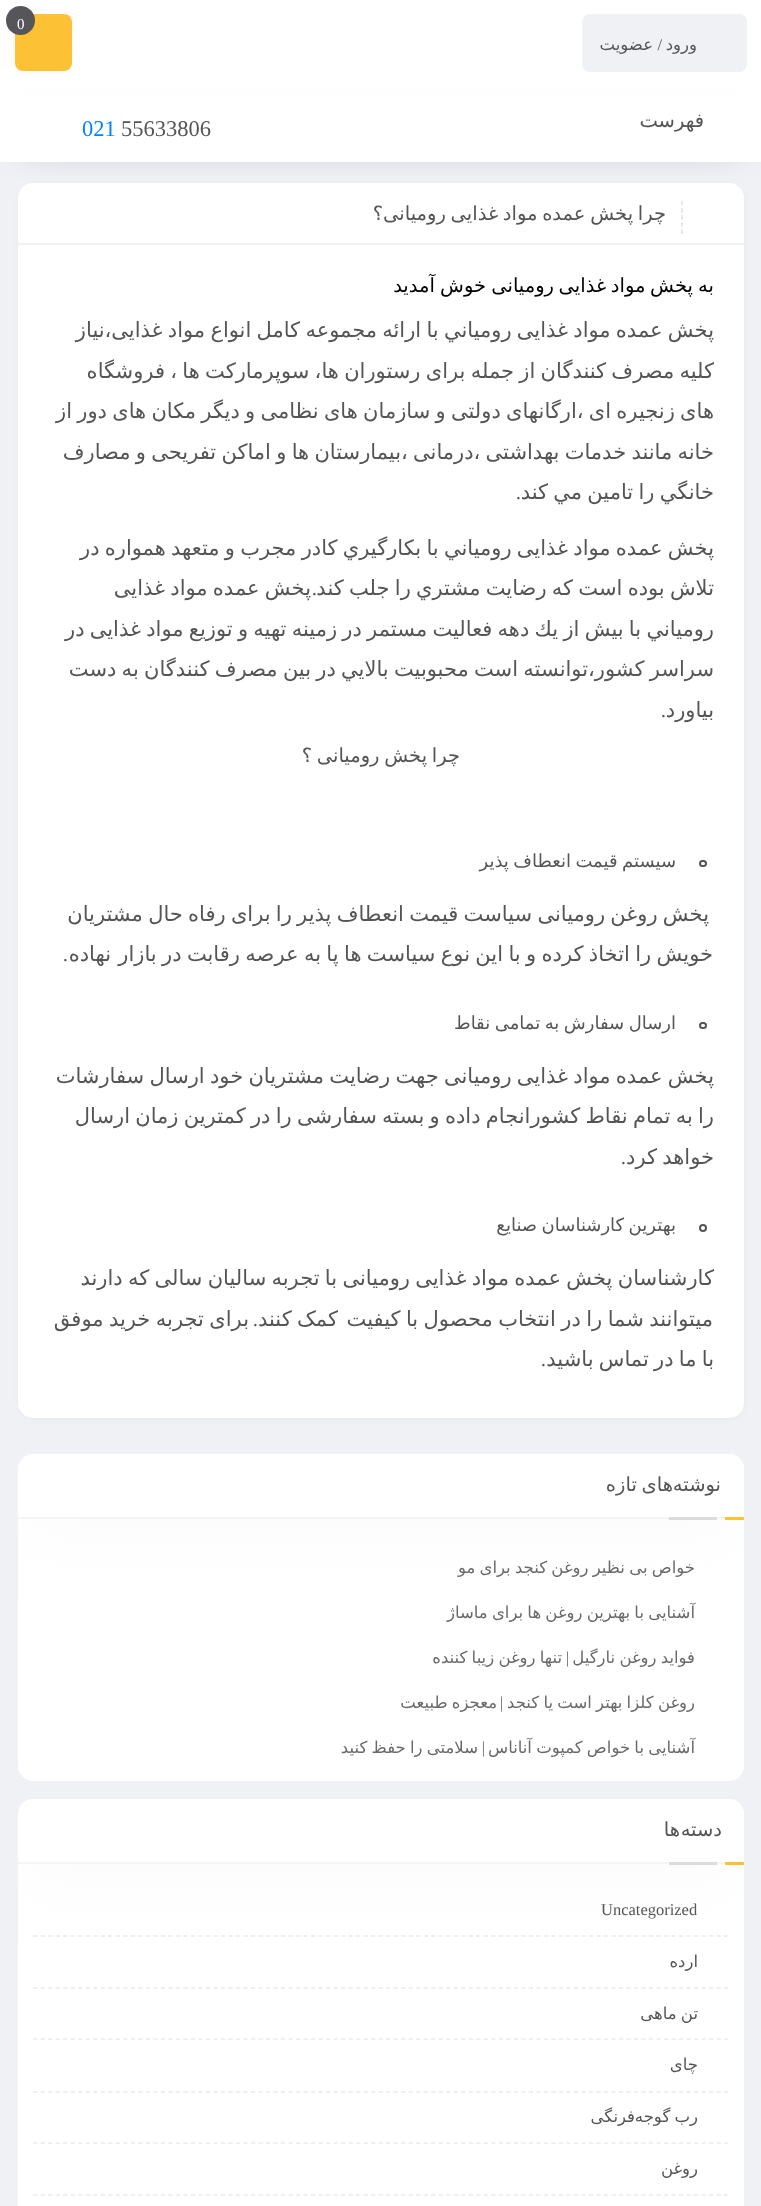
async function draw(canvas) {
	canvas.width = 761;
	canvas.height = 2206;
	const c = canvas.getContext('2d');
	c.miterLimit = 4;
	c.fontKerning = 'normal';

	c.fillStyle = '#eff1f5';
	c.fillRect(0, 0, 761, 2206);
	c.fillStyle = '#fff';
	c.fillRect(0, 0, 761, 95);
	c.fillStyle = '#0000001a';
	c.filter = 'blur(5px)';
	c.beginPath();
	c.roundRect(20, 20, 48, 48, 3);
	c.fill();
	c.filter = 'none';
	c.fillStyle = '#fcc135';
	c.beginPath();
	c.roundRect(15, 14, 57, 57, 8);
	c.fill();
	c.fillStyle = '#55555a';
	c.beginPath();
	c.arc(20.5, 20.5, 14.5, 0, 2 * Math.PI);
	c.fill();
	c.font = '15px Liberation Serif';
	c.fillStyle = '#fff';
	c.fillText('0', 17, 29);
	c.fillStyle = '#eff1f5';
	c.beginPath();
	c.roundRect(582, 14, 165, 58, 8);
	c.fill();
	c.direction = 'rtl';
	c.font = '16.5px DejaVu Sans';
	c.fillStyle = '#555';
	c.fillText('ورود', 697, 50);
	c.font = '16.5px Liberation Serif';
	c.fillText('/', 662, 50);
	c.font = '16.5px DejaVu Sans';
	c.fillText('عضویت', 653, 50);
	c.fillStyle = '#0000004f';
	c.filter = 'blur(17px)';
	c.beginPath();
	c.rect(24, 126, 714, 20);
	c.fill();
	c.filter = 'none';
	c.fillStyle = '#fff';
	c.fillRect(0, 95, 761, 67);
	c.font = '19.5px DejaVu Sans';
	c.fillStyle = '#555';
	c.fillText('فهرست', 704, 127);
	c.direction = 'ltr';
	c.font = '22.5px Liberation Serif';
	c.fillText('55633806', 121, 136);
	c.fillStyle = '#0183ff';
	c.fillText('021', 82, 136);
	c.fillStyle = '#0000001a';
	c.filter = 'blur(5px)';
	c.beginPath();
	c.roundRect(23, 189, 717, 1226, 11);
	c.fill();
	c.filter = 'none';
	c.fillStyle = '#fff';
	c.beginPath();
	c.roundRect(18, 183, 726, 1235, 15);
	c.fill();
	c.fillStyle = '#f3f2f2';
	c.fillRect(18, 243, 726, 2);
	c.beginPath();
	c.moveTo(682, 201);
	c.lineTo(682, 234);
	c.strokeStyle = '#dfe0e3';
	c.lineWidth = 1.5;
	c.setLineDash([4.5, 2.62]);
	c.stroke();
	c.wordSpacing = '-1.5px';
	c.direction = 'rtl';
	c.font = '19.5px DejaVu Sans';
	c.fillStyle = '#555';
	c.fillText('چرا پخش عمده مواد غذایی رومیانی؟', 666, 220);
	c.wordSpacing = '0px';
	c.fillStyle = '#000';
	c.fillText('به', 714, 292);
	c.wordSpacing = '-1.5px';
	c.fillText('پخش مواد غذایی', 693, 292);
	c.wordSpacing = '-1px';
	c.fillText('رومیانی خوش آمدید', 554, 292);
	c.wordSpacing = '-1.4px';
	c.font = '21px DejaVu Sans';
	c.fillStyle = '#555';
	for (const [text, x, y] of [
		['پخش عمده مواد غذایی رومياني با ارائه مجموعه كامل انواع مواد غذایی،نياز', 714, 337],
		['كليه مصرف كنندگان از جمله برای رستوران ها، سوپرمارکت ها ، فروشگاه', 714, 378],
		['های زنجیره ای ،ارگانهای دولتی و سازمان های نظامی و دیگر مکان های دور از', 714, 418],
		['خانه مانند خدمات بهداشتی ،درمانی ،بیمارستان ها و اماکن تفریحی و مصارف', 714, 459],
		['خانگي را تامین مي كند', 714, 499],
	]) {
		c.fillText(text, x, y);
	}
	c.wordSpacing = '0px';
	c.font = '21px Liberation Serif';
	c.fillText('.', 521, 499);
	c.wordSpacing = '-1.4px';
	c.font = '21px DejaVu Sans';
	for (const [text, x, y] of [
		['پخش عمده مواد غذایی رومياني با بكارگيري كادر مجرب و متعهد همواره در', 714, 555],
		['تلاش بوده است كه رضايت مشتري را جلب كند', 714, 595],
		['پخش عمده مواد غذایی', 311, 595],
	]) {
		c.fillText(text, x, y);
	}
	c.wordSpacing = '0px';
	c.font = '21px Liberation Serif';
	c.fillText('.', 317, 595);
	c.wordSpacing = '-1.4px';
	c.font = '21px DejaVu Sans';
	c.fillText('رومياني با بيش از يك دهه فعاليت مستمر در زمينه تهيه و توزيع مواد غذایی در', 714, 636);
	c.fillText('سراسر كشور،توانسته است محبوبيت بالايي در بين مصرف كنندگان به دست', 714, 676);
	c.wordSpacing = '0px';
	c.fillText('بياورد', 714, 717);
	c.font = '21px Liberation Serif';
	c.fillText('.', 666, 717);
	c.wordSpacing = '-1.5px';
	c.font = '19.5px DejaVu Sans';
	c.fillText('چرا پخش رومیانی ؟', 460, 762);
	c.beginPath();
	c.roundRect(700, 861, 6, 5, 2.5);
	c.strokeStyle = '#555';
	c.lineWidth = 2;
	c.setLineDash([]);
	c.stroke();
	c.wordSpacing = '-1.25px';
	c.font = '18px DejaVu Sans';
	c.fillText('سیستم قیمت انعطاف پذیر', 676, 867);
	c.wordSpacing = '-1.4px';
	c.font = '21px DejaVu Sans';
	c.fillText('پخش روغن رومیانی سیاست قیمت انعطاف پذیر را برای رفاه حال مشتریان', 709, 921);
	c.wordSpacing = '-1.3px';
	c.fillText('خویش را اتخاذ کرده و با این نوع سیاست ها پا به عرصه رقابت در بازار', 713, 961);
	c.wordSpacing = '0px';
	c.fillText('نهاده', 111, 961);
	c.font = '21px Liberation Serif';
	c.fillText('.', 68, 961);
	c.beginPath();
	c.roundRect(700, 1023, 6, 5, 2.5);
	c.stroke();
	c.wordSpacing = '-1.25px';
	c.font = '18px DejaVu Sans';
	c.fillText('ارسال سفارش به تمامی نقاط', 676, 1029);
	c.wordSpacing = '-1.4px';
	c.font = '21px DejaVu Sans';
	for (const [text, x, y] of [
		['پخش عمده مواد غذایی رومیانی جهت رضایت مشتریان خود ارسال سفارشات', 714, 1083],
		['را به تمام نقاط کشورانجام داده و بسته سفارشی را در کمترین زمان ارسال', 714, 1123],
		['خواهد کرد', 714, 1164],
	]) {
		c.fillText(text, x, y);
	}
	c.wordSpacing = '0px';
	c.font = '21px Liberation Serif';
	c.fillText('.', 626, 1164);
	c.beginPath();
	c.arc(703, 1228, 3, 0, 2 * Math.PI);
	c.stroke();
	c.wordSpacing = '-1.25px';
	c.font = '18px DejaVu Sans';
	c.fillText('بهترین کارشناسان صنایع', 676, 1231);
	c.wordSpacing = '-1.4px';
	c.font = '21px DejaVu Sans';
	c.fillText('کارشناسان پخش عمده مواد غذایی رومیانی با تجربه سالیان سالی که دارند', 714, 1285);
	c.wordSpacing = '-1.25px';
	c.fillText('میتوانند شما را در انتخاب محصول با کیفیت', 713, 1326);
	c.fillText('کمک کنند', 338, 1326);
	c.wordSpacing = '0px';
	c.font = '21px Liberation Serif';
	c.fillText('.', 258, 1326);
	c.wordSpacing = '-1.25px';
	c.font = '21px DejaVu Sans';
	c.fillText('برای تجربه خرید موفق', 249, 1326);
	c.wordSpacing = '-1.4px';
	c.fillText('با ما در تماس باشید', 714, 1366);
	c.wordSpacing = '0px';
	c.font = '21px Liberation Serif';
	c.fillText('.', 546, 1366);
	c.fillStyle = '#fff';
	c.beginPath();
	c.roundRect(18, 1454, 726, 327, 15);
	c.fill();
	c.save();
	c.beginPath();
	c.roundRect(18, 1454, 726, 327, 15);
	c.clip();
	c.fillStyle = '#f5f5f5';
	c.filter = 'blur(37.5px)';
	c.beginPath();
	c.rect(32, 1473, 699, 38);
	c.fill();
	c.filter = 'none';
	c.restore();
	c.beginPath();
	c.roundRect(18, 1454, 726, 64, [15, 15, 0, 0]);
	c.fill();
	c.fillStyle = '#f5f5f5';
	c.fillRect(18, 1517, 707, 2);
	c.font = '19.5px DejaVu Sans';
	c.fillStyle = '#555';
	c.fillText('نوشته', 721, 1491);
	c.wordSpacing = '-1.5px';
	c.fillText('های تازه', 673, 1491);
	c.fillStyle = '#fcc135';
	c.fillRect(725, 1517, 19, 3);
	c.fillStyle = '#dcdcdc';
	c.fillRect(669, 1517, 48, 3);
	c.wordSpacing = '-1px';
	c.font = '16.5px DejaVu Sans';
	c.fillStyle = '#696969';
	for (const [text, x, y] of [
		['خواص بی نظیر روغن کنجد برای مو', 695, 1573],
		['آشنایی با بهترین روغن ها برای ماساژ', 695, 1618],
		['فواید روغن نارگیل', 695, 1663],
	]) {
		c.fillText(text, x, y);
	}
	c.wordSpacing = '0px';
	c.font = '16.5px Liberation Serif';
	c.fillText('|', 569, 1663);
	c.wordSpacing = '-1px';
	c.font = '16.5px DejaVu Sans';
	c.fillText('تنها روغن زیبا کننده', 562, 1663);
	c.fillText('روغن کلزا بهتر است یا کنجد', 695, 1708);
	c.wordSpacing = '0px';
	c.font = '16.5px Liberation Serif';
	c.fillText('|', 503, 1708);
	c.wordSpacing = '-1px';
	c.font = '16.5px DejaVu Sans';
	c.fillText('معجزه طبیعت', 497, 1708);
	c.fillText('آشنایی با خواص کمپوت آناناس', 695, 1753);
	c.wordSpacing = '0px';
	c.font = '16.5px Liberation Serif';
	c.fillText('|', 485, 1753);
	c.wordSpacing = '-1px';
	c.font = '16.5px DejaVu Sans';
	c.fillText('سلامتی را حفظ کنید', 478, 1753);
	c.fillStyle = '#fff';
	c.beginPath();
	c.roundRect(18, 1799, 726, 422, 15);
	c.fill();
	c.beginPath();
	c.moveTo(33, 1936);
	c.lineTo(729, 1936);
	c.strokeStyle = '#e8ecec';
	c.lineWidth = 1.5;
	c.setLineDash([4.5, 3.01]);
	c.stroke();
	c.save();
	c.beginPath();
	c.roundRect(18, 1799, 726, 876, 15);
	c.clip();
	c.fillStyle = '#f5f5f5';
	c.filter = 'blur(37.5px)';
	c.beginPath();
	c.rect(32, 1818, 699, 38);
	c.fill();
	c.filter = 'none';
	c.restore();
	c.beginPath();
	c.roundRect(18, 1799, 726, 64, [15, 15, 0, 0]);
	c.fill();
	c.fillStyle = '#f5f5f5';
	c.fillRect(18, 1862, 707, 2);
	c.wordSpacing = '0px';
	c.font = '19.5px DejaVu Sans';
	c.fillStyle = '#555';
	c.fillText('دسته', 722, 1836);
	c.fillText('ها', 680, 1836);
	c.fillStyle = '#fcc135';
	c.fillRect(725, 1862, 19, 3);
	c.fillStyle = '#dcdcdc';
	c.fillRect(669, 1862, 48, 3);
	c.direction = 'ltr';
	c.font = '16.5px Liberation Serif';
	c.fillStyle = '#555';
	c.fillText('Uncategorized', 601, 1915);
	c.beginPath();
	c.moveTo(33, 1988);
	c.lineTo(729, 1988);
	c.stroke();
	c.direction = 'rtl';
	c.font = '16.5px DejaVu Sans';
	c.fillText('ارده', 698, 1967);
	c.beginPath();
	c.moveTo(33, 2039);
	c.lineTo(729, 2039);
	c.stroke();
	c.wordSpacing = '-1px';
	c.fillText('تن ماهی', 698, 2019);
	c.beginPath();
	c.moveTo(33, 2092);
	c.lineTo(729, 2092);
	c.stroke();
	c.wordSpacing = '0px';
	c.fillText('چای', 698, 2070);
	c.beginPath();
	c.moveTo(33, 2143);
	c.lineTo(729, 2143);
	c.stroke();
	c.wordSpacing = '-1px';
	c.fillText('رب گوجه', 698, 2122);
	c.wordSpacing = '0px';
	c.fillText('فرنگی', 635, 2122);
	c.beginPath();
	c.moveTo(33, 2195);
	c.lineTo(729, 2195);
	c.stroke();
	c.fillText('روغن', 698, 2174);
}

draw(document.querySelector('canvas'));
